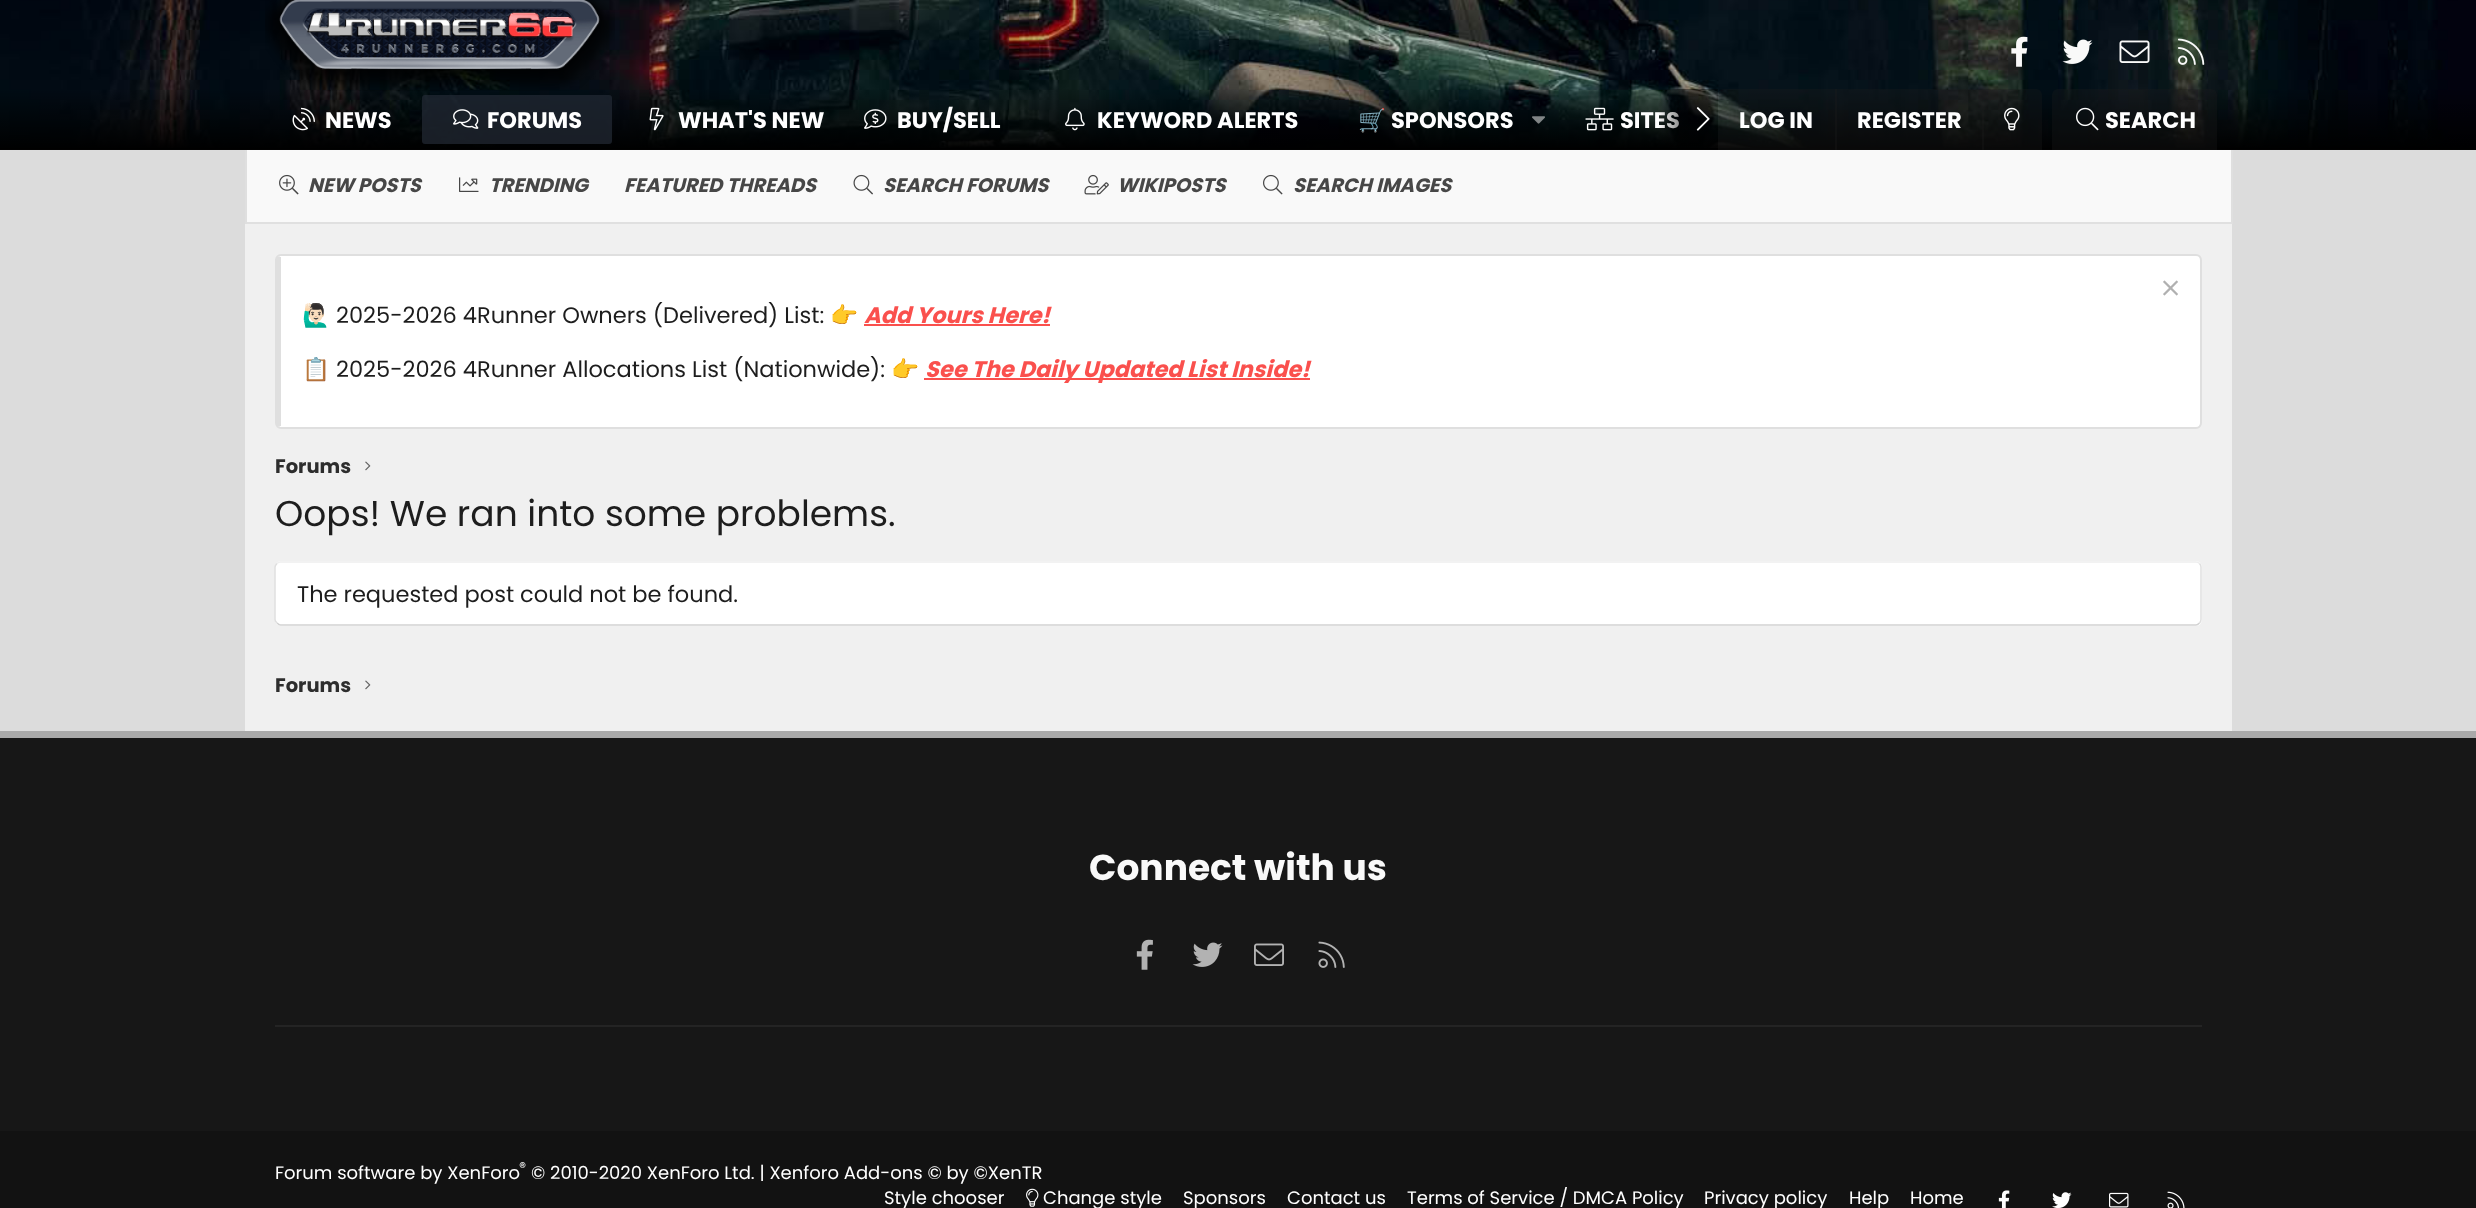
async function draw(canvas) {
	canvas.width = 2476;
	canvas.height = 1208;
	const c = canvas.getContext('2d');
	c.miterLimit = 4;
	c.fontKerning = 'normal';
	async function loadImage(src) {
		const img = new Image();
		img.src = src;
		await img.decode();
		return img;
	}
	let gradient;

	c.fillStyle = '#dcdcdc';
	c.fillRect(0, 0, 2476, 1208);
	c.fillStyle = '#000';
	c.fillRect(0, 148, 2476, 1);
	c.drawImage(await loadImage('img1.png'), 0, 0, 2476, 148);
	c.drawImage(await loadImage('img2.png'), 265, 0, 350, 91);
	c.drawImage(await loadImage('img3.png'), 2011, 36, 17, 31);
	c.drawImage(await loadImage('img4.png'), 2062, 39, 31, 25);
	c.drawImage(await loadImage('img5.png'), 2119, 40, 31, 23);
	c.drawImage(await loadImage('img6.png'), 2178, 38, 27, 27);
	gradient = c.createLinearGradient(1238, 88, 1238, 150);
	gradient.addColorStop(0, '#00000000');
	gradient.addColorStop(1, '#000');
	c.fillStyle = gradient;
	c.fillRect(0, 89, 2476, 61);
	c.drawImage(await loadImage('img7.png'), 292, 107, 23, 24);
	c.font = 'bold 22.5px Poppins';
	c.fillStyle = '#fff';
	c.fillText('NEWS', 325, 128);
	c.fillStyle = '#232a35b8';
	c.beginPath();
	c.roundRect(422, 95, 190, 49, 3);
	c.fill();
	c.drawImage(await loadImage('img8.png'), 453, 109, 26, 20);
	c.fillStyle = '#fff';
	c.fillText('FORUMS', 487, 128);
	c.drawImage(await loadImage('img9.png'), 649, 107, 15, 24);
	c.fillText('WHAT\'S NEW', 678, 128);
	c.drawImage(await loadImage('img10.png'), 864, 109, 23, 20);
	c.fillText('BUY/SELL', 897, 128);
	c.drawImage(await loadImage('img11.png'), 1065, 107, 20, 24);
	c.fillText('KEYWORD ALERTS', 1097, 128);
	c.font = 'bold 22.5px Noto Color Emoji';
	c.fillText('🛒', 1358, 128);
	c.font = 'bold 22.5px Poppins';
	c.fillText('SPONSORS', 1391, 128);
	c.drawImage(await loadImage('img12.png'), 1532, 116, 13, 8);
	c.drawImage(await loadImage('img13.png'), 1585, 107, 29, 24);
	c.fillText('SITES', 1620, 128);
	gradient = c.createLinearGradient(1658, 119, 1718, 119);
	gradient.addColorStop(0, '#00000000');
	gradient.addColorStop(0.33, '#00000066');
	c.fillStyle = gradient;
	c.fillRect(1659, 89, 59, 58);
	c.drawImage(await loadImage('img14.png'), 1696, 107, 14, 24);
	c.fillStyle = '#1d1d1d4d';
	c.beginPath();
	c.roundRect(1718, 89, 324, 61, [6, 6, 0, 0]);
	c.fill();
	c.fillStyle = '#fff';
	c.fillText('LOG IN', 1739, 128);
	c.fillStyle = '#1d1d1d4d';
	c.fillRect(1835, 89, 2, 61);
	c.fillStyle = '#fff';
	c.fillText('REGISTER', 1857, 128);
	c.fillStyle = '#1d1d1d4d';
	c.fillRect(1982, 110, 2, 40);
	c.drawImage(await loadImage('img15.png'), 2004, 107, 16, 24);
	c.beginPath();
	c.roundRect(2052, 89, 165, 61, [6, 6, 0, 0]);
	c.fill();
	c.drawImage(await loadImage('img16.png'), 2076, 107, 23, 24);
	c.fillStyle = '#fff';
	c.fillText('SEARCH', 2105, 128);
	for (const [x, y, w, h, color] of [
		[247, 150, 1984, 72, '#f9f9f9'],
		[2231, 150, 2, 74, '#dfdfdf'],
		[245, 222, 1987, 2, '#e0e0e0'],
		[245, 150, 2, 74, '#dfdfdf'],
	]) {
		c.fillStyle = color;
		c.fillRect(x, y, w, h);
	}
	c.drawImage(await loadImage('img17.png'), 279, 174, 20, 21);
	c.font = 'italic bold 19.5px Poppins';
	c.fillStyle = '#474747';
	c.fillText('NEW POSTS', 308, 192);
	c.drawImage(await loadImage('img18.png'), 459, 177, 20, 15);
	c.fillText('TRENDING', 489, 192);
	c.fillText('FEATURED THREADS', 624, 192);
	c.drawImage(await loadImage('img19.png'), 853, 174, 20, 21);
	c.fillText('SEARCH FORUMS', 883, 192);
	c.drawImage(await loadImage('img20.png'), 1084, 174, 25, 21);
	c.fillText('WIKIPOSTS', 1117, 192);
	c.drawImage(await loadImage('img21.png'), 1263, 174, 20, 21);
	c.fillText('SEARCH IMAGES', 1293, 192);
	c.fillStyle = '#f0f0f0';
	c.fillRect(245, 224, 1987, 507);
	c.fillStyle = '#fff';
	c.beginPath();
	c.moveTo(280, 255);
	c.lineTo(2196, 255);
	c.bezierCurveTo(2198, 255, 2200, 257, 2200, 260);
	c.lineTo(2200, 423);
	c.bezierCurveTo(2200, 425, 2198, 428, 2196, 428);
	c.lineTo(280, 428);
	c.closePath();
	c.fill();
	c.beginPath();
	c.roundRect(276, 255, 1925, 173, 5);
	c.strokeStyle = '#dfdfdf';
	c.lineWidth = 2;
	c.stroke();
	c.fillStyle = '#dfdfdf';
	c.fillRect(277, 257, 4, 169);
	c.drawImage(await loadImage('img22.png'), 2163, 280, 15, 16);
	c.font = '22.5px Noto Color Emoji';
	c.fillStyle = '#1d1d1d';
	c.fillText('🙋🏻‍♂️', 302, 323);
	c.font = '22.5px Poppins';
	c.fillText('2025-2026 4Runner Owners (Delivered) List:', 336, 323);
	c.font = '22.5px Noto Color Emoji';
	c.fillText('👉', 830, 323);
	c.font = 'italic bold 22.5px Poppins';
	c.fillStyle = '#fa504d';
	c.fillText('Add Yours Here!', 864, 323);
	c.fillRect(864, 324, 186, 2);
	c.font = '22.5px Noto Color Emoji';
	c.fillStyle = '#1d1d1d';
	c.fillText('📋', 302, 377);
	c.font = '22.5px Poppins';
	c.fillText('2025-2026 4Runner Allocations List (Nationwide):', 336, 377);
	c.font = '22.5px Noto Color Emoji';
	c.fillText('👉', 891, 377);
	c.fillStyle = '#fa504d';
	c.fillRect(924, 378, 386, 2);
	c.font = 'italic bold 22.5px Poppins';
	c.fillText('See The Daily Updated List Inside!', 925, 377);
	c.font = 'bold 19.5px Poppins';
	c.fillStyle = '#2d2d2d';
	c.fillText('Forums', 275, 473);
	c.drawImage(await loadImage('img23.png'), 365, 461, 6, 10);
	c.font = '36px Poppins';
	c.fillStyle = '#1d1d1d';
	c.fillText('Oops! We ran into some problems.', 275, 526);
	c.fillStyle = '#fff';
	c.beginPath();
	c.roundRect(275, 561, 1927, 65, 6);
	c.fill();
	c.beginPath();
	c.moveTo(277, 563.5);
	c.bezierCurveTo(278, 562.5, 279, 562, 280.5, 562);
	c.lineTo(2196, 562);
	c.bezierCurveTo(2197.5, 562, 2198.5, 562.5, 2199.5, 563.5);
	c.strokeStyle = '#eee';
	c.lineWidth = 1.5;
	c.stroke();
	c.beginPath();
	c.moveTo(2199.5, 563.5);
	c.bezierCurveTo(2200.5, 564.5, 2201, 565.5, 2201, 567);
	c.lineTo(2201, 619.5);
	c.bezierCurveTo(2201, 621, 2200.5, 622, 2199.5, 623);
	c.strokeStyle = '#dfdfdf';
	c.stroke();
	c.beginPath();
	c.moveTo(2199.5, 623);
	c.bezierCurveTo(2198.5, 624, 2197.5, 625, 2196, 625);
	c.lineTo(280.5, 625);
	c.bezierCurveTo(279, 625, 278, 624, 277, 623);
	c.strokeStyle = '#d2d2d2';
	c.stroke();
	c.beginPath();
	c.moveTo(277, 623);
	c.bezierCurveTo(276, 622, 275, 621, 275, 619.5);
	c.lineTo(275, 567);
	c.bezierCurveTo(275, 565.5, 276, 564.5, 277, 563.5);
	c.strokeStyle = '#dfdfdf';
	c.stroke();
	c.font = '22.5px Poppins';
	c.fillStyle = '#1d1d1d';
	c.fillText('The requested post could not be found.', 297, 602);
	c.font = 'bold 19.5px Poppins';
	c.fillStyle = '#2d2d2d';
	c.fillText('Forums', 275, 692);
	c.drawImage(await loadImage('img23.png'), 365, 680, 6, 10);
	for (const [x, y, w, h, color] of [
		[0, 738, 2476, 393, '#171717'],
		[0, 731, 2476, 7, '#a9a9a9'],
		[275, 1025, 1927, 2, '#242424'],
	]) {
		c.fillStyle = color;
		c.fillRect(x, y, w, h);
	}
	c.font = 'bold 36px Poppins';
	c.fillStyle = '#f9f9f9';
	c.fillText('Connect with us', 1089, 880);
	c.drawImage(await loadImage('img24.png'), 1136, 939, 17, 31);
	c.drawImage(await loadImage('img25.png'), 1192, 942, 31, 25);
	c.drawImage(await loadImage('img26.png'), 1254, 943, 30, 23);
	c.drawImage(await loadImage('img27.png'), 1318, 941, 27, 27);
	c.fillStyle = '#121212';
	c.fillRect(0, 1131, 2476, 77);
	c.font = '18px Poppins';
	c.fillStyle = '#fff';
	c.fillText('Forum software by XenForo', 275, 1179);
	c.font = '14px Poppins';
	c.fillText('®', 519, 1172);
	c.font = '18px Poppins';
	c.fillText('© 2010-2020 XenForo Ltd. | Xenforo Add-ons © by ©XenTR', 531, 1179);
	c.fillText('Style chooser', 884, 1204);
	c.drawImage(await loadImage('img28.png'), 1026, 1188, 13, 19);
	for (const [text, x, y] of [
		['Change style', 1043, 1204],
		['Sponsors', 1183, 1204],
		['Contact us', 1287, 1204],
		['Terms of Service / DMCA Policy', 1407, 1204],
		['Privacy policy', 1704, 1204],
		['Help', 1849, 1204],
		['Home', 1910, 1204],
	]) {
		c.fillText(text, x, y);
	}
	c.drawImage(await loadImage('img29.png'), 1998, 1190, 12, 18);
	c.drawImage(await loadImage('img30.png'), 2052, 1192, 20, 16);
	c.drawImage(await loadImage('img31.png'), 2109, 1192, 20, 16);
	c.drawImage(await loadImage('img32.png'), 2167, 1191, 18, 17);
}

draw(document.querySelector('canvas'));
